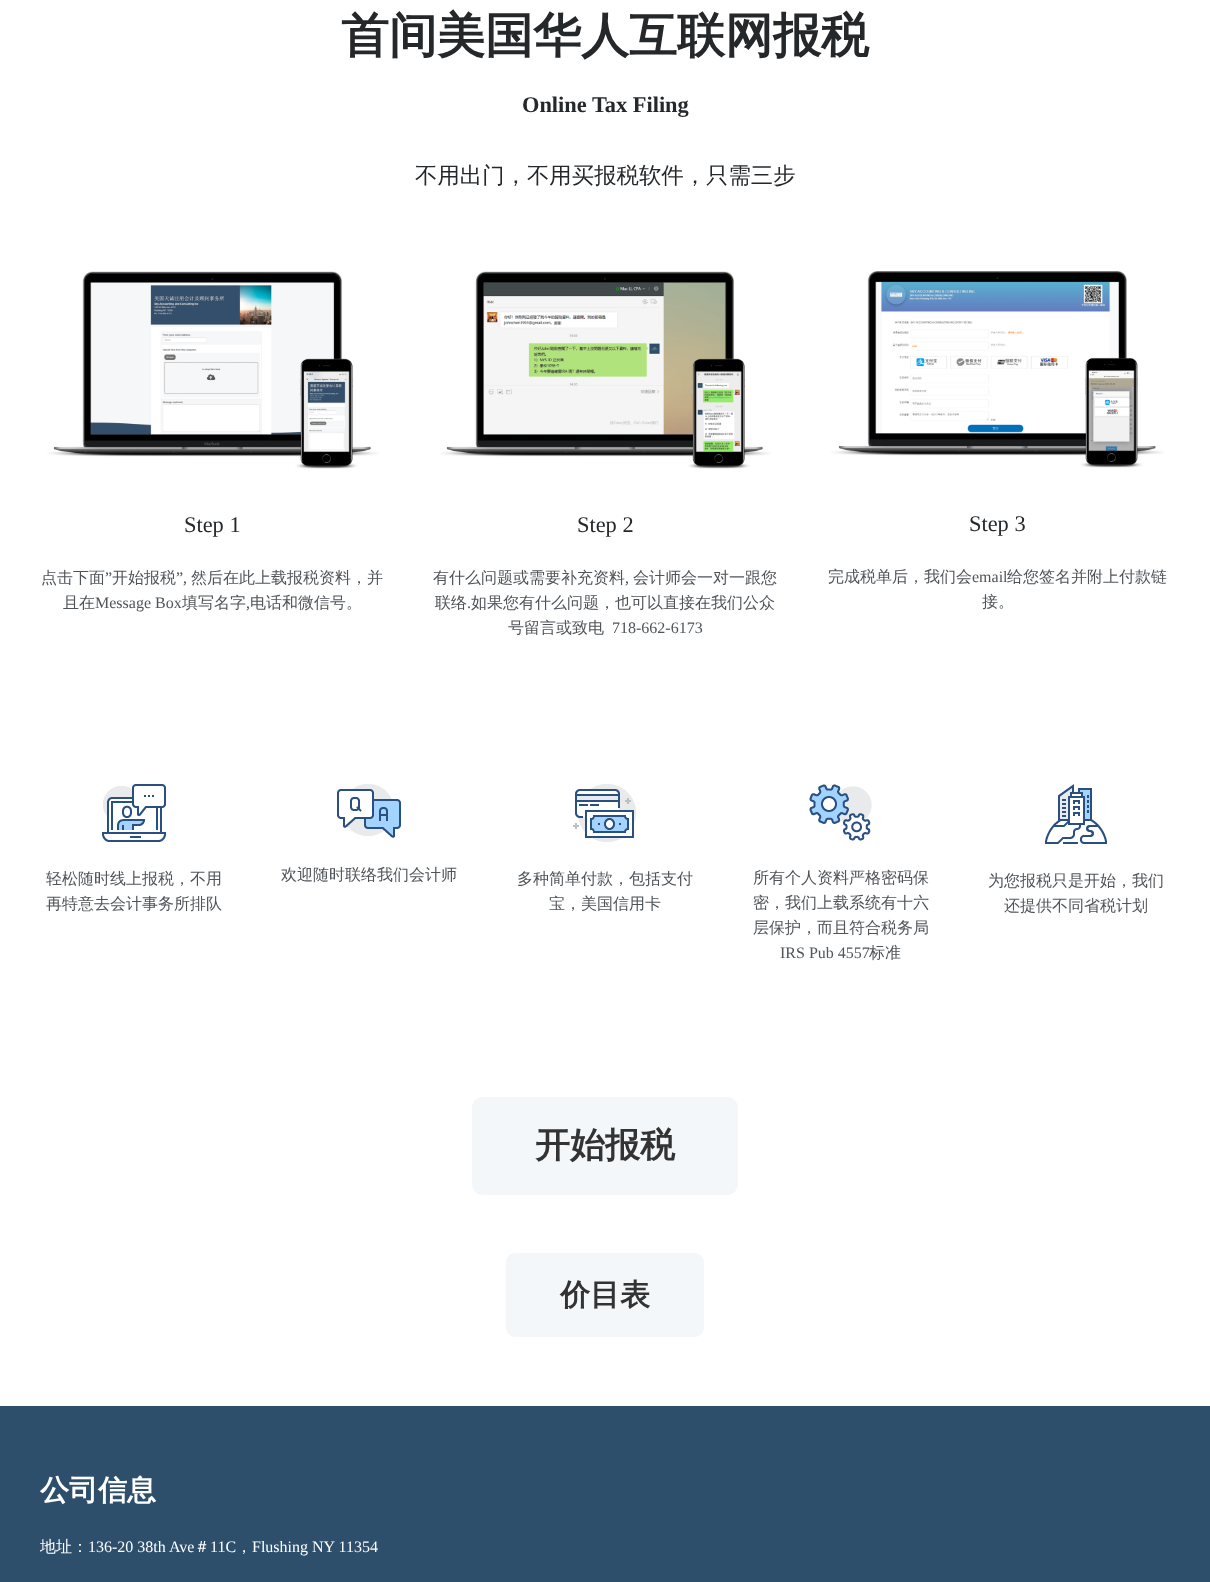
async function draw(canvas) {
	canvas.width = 1210;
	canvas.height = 1582;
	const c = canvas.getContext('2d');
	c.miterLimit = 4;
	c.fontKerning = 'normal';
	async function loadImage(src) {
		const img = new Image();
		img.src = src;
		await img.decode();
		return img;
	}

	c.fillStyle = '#fff';
	c.fillRect(0, 0, 1210, 1582);
	c.font = 'bold 48px WenQuanYi Zen Hei';
	c.fillStyle = '#25282b';
	c.fillText('首间美国华人互联网报税', 341, 52);
	c.font = 'bold 22.4px Liberation Serif';
	c.fillText('Online Tax Filing', 522, 112);
	c.font = '500 22.4px WenQuanYi Zen Hei';
	c.fillText('不用出门，不用买报税软件，只需三步', 415, 183);
	c.drawImage(await loadImage('img1.png'), 47, 271, 332, 198);
	c.font = '22.4px Liberation Serif';
	c.fillText('Step 1', 184, 532);
	c.font = '500 16px WenQuanYi Zen Hei';
	c.fillStyle = '#4f5459';
	c.fillText('点击下面', 41, 583);
	c.font = '16px Liberation Serif';
	c.fillText('”', 105, 583);
	c.font = '500 16px WenQuanYi Zen Hei';
	c.fillText('开始报税', 112, 583);
	c.font = '16px Liberation Serif';
	c.fillText('”,', 176, 583);
	c.font = '500 16px WenQuanYi Zen Hei';
	c.fillText('然后在此上载报税资料，并', 191, 583);
	c.fillText('且在', 63, 608);
	c.font = '16px Liberation Serif';
	c.fillText('Message Box', 95, 608);
	c.font = '500 16px WenQuanYi Zen Hei';
	c.fillText('填写名字', 182, 608);
	c.font = '16px Liberation Serif';
	c.fillText(',', 246, 608);
	c.font = '500 16px WenQuanYi Zen Hei';
	c.fillText('电话和微信号。', 250, 608);
	c.drawImage(await loadImage('img2.png'), 440, 271, 331, 198);
	c.font = '22.4px Liberation Serif';
	c.fillStyle = '#25282b';
	c.fillText('Step 2', 577, 532);
	c.font = '500 16px WenQuanYi Zen Hei';
	c.fillStyle = '#4f5459';
	c.fillText('有什么问题或需要补充资料', 433, 583);
	c.font = '16px Liberation Serif';
	c.fillText(',', 625, 583);
	c.font = '500 16px WenQuanYi Zen Hei';
	c.fillText('会计师会一对一跟您', 633, 583);
	c.fillText('联络', 435, 608);
	c.font = '16px Liberation Serif';
	c.fillText('.', 467, 608);
	c.font = '500 16px WenQuanYi Zen Hei';
	c.fillText('如果您有什么问题，也可以直接在我们公众', 471, 608);
	c.fillText('号留言或致电', 508, 633);
	c.font = '16px Liberation Serif';
	c.fillText('718-662-6173', 612, 633);
	c.drawImage(await loadImage('img3.png'), 831, 271, 333, 197);
	c.font = '22.4px Liberation Serif';
	c.fillStyle = '#25282b';
	c.fillText('Step 3', 969, 531);
	c.font = '500 16px WenQuanYi Zen Hei';
	c.fillStyle = '#4f5459';
	c.fillText('完成税单后，我们会', 828, 582);
	c.font = '16px Liberation Serif';
	c.fillText('email', 972, 582);
	c.font = '500 16px WenQuanYi Zen Hei';
	c.fillText('给您签名并附上付款链', 1007, 582);
	c.fillText('接。', 982, 607);
	c.drawImage(await loadImage('img4.png'), 102, 784, 64, 58);
	c.fillText('轻松随时线上报税，不用', 46, 884);
	c.fillText('再特意去会计事务所排队', 46, 909);
	c.drawImage(await loadImage('img5.png'), 337, 784, 64, 54);
	c.fillText('欢迎随时联络我们会计师', 281, 880);
	c.drawImage(await loadImage('img6.png'), 573, 784, 63, 58);
	c.fillText('多种简单付款，包括支付', 517, 884);
	c.fillText('宝，美国信用卡', 549, 909);
	c.drawImage(await loadImage('img7.png'), 809, 784, 63, 57);
	for (const [text, x, y] of [
		['所有个人资料严格密码保', 753, 883],
		['密，我们上载系统有十六', 753, 908],
		['层保护，而且符合税务局', 753, 933],
	]) {
		c.fillText(text, x, y);
	}
	c.font = '16px Liberation Serif';
	c.fillText('IRS Pub 4557', 780, 958);
	c.font = '500 16px WenQuanYi Zen Hei';
	c.fillText('标准', 869, 958);
	c.drawImage(await loadImage('img8.png'), 1045, 784, 62, 60);
	c.fillText('为您报税只是开始，我们', 988, 886);
	c.fillText('还提供不同省税计划', 1004, 911);
	c.fillStyle = '#f3f7fa';
	c.beginPath();
	c.roundRect(472, 1097, 266, 98, 11);
	c.fill();
	c.font = 'bold 35px WenQuanYi Zen Hei';
	c.fillStyle = '#333';
	c.fillText('开始报税', 535, 1157);
	c.fillStyle = '#f3f7fa';
	c.beginPath();
	c.roundRect(506, 1253, 198, 84, 9);
	c.fill();
	c.font = 'bold 30px WenQuanYi Zen Hei';
	c.fillStyle = '#333';
	c.fillText('价目表', 560, 1305);
	c.fillStyle = '#2d4f6c';
	c.fillRect(0, 1406, 1210, 176);
	c.font = 'bold 29px WenQuanYi Zen Hei';
	c.fillStyle = '#fff';
	c.fillText('公司信息', 40, 1500);
	c.font = '500 16px WenQuanYi Zen Hei';
	c.fillText('地址：', 40, 1552);
	c.font = '16px Liberation Serif';
	c.fillText('136-20 38th Ave', 88, 1552);
	c.font = '500 16px WenQuanYi Zen Hei';
	c.fillText('＃', 194, 1552);
	c.font = '16px Liberation Serif';
	c.fillText('11C', 210, 1552);
	c.font = '500 16px WenQuanYi Zen Hei';
	c.fillText('，', 236, 1552);
	c.font = '16px Liberation Serif';
	c.fillText('Flushing NY 11354', 252, 1552);
}

draw(document.querySelector('canvas'));
